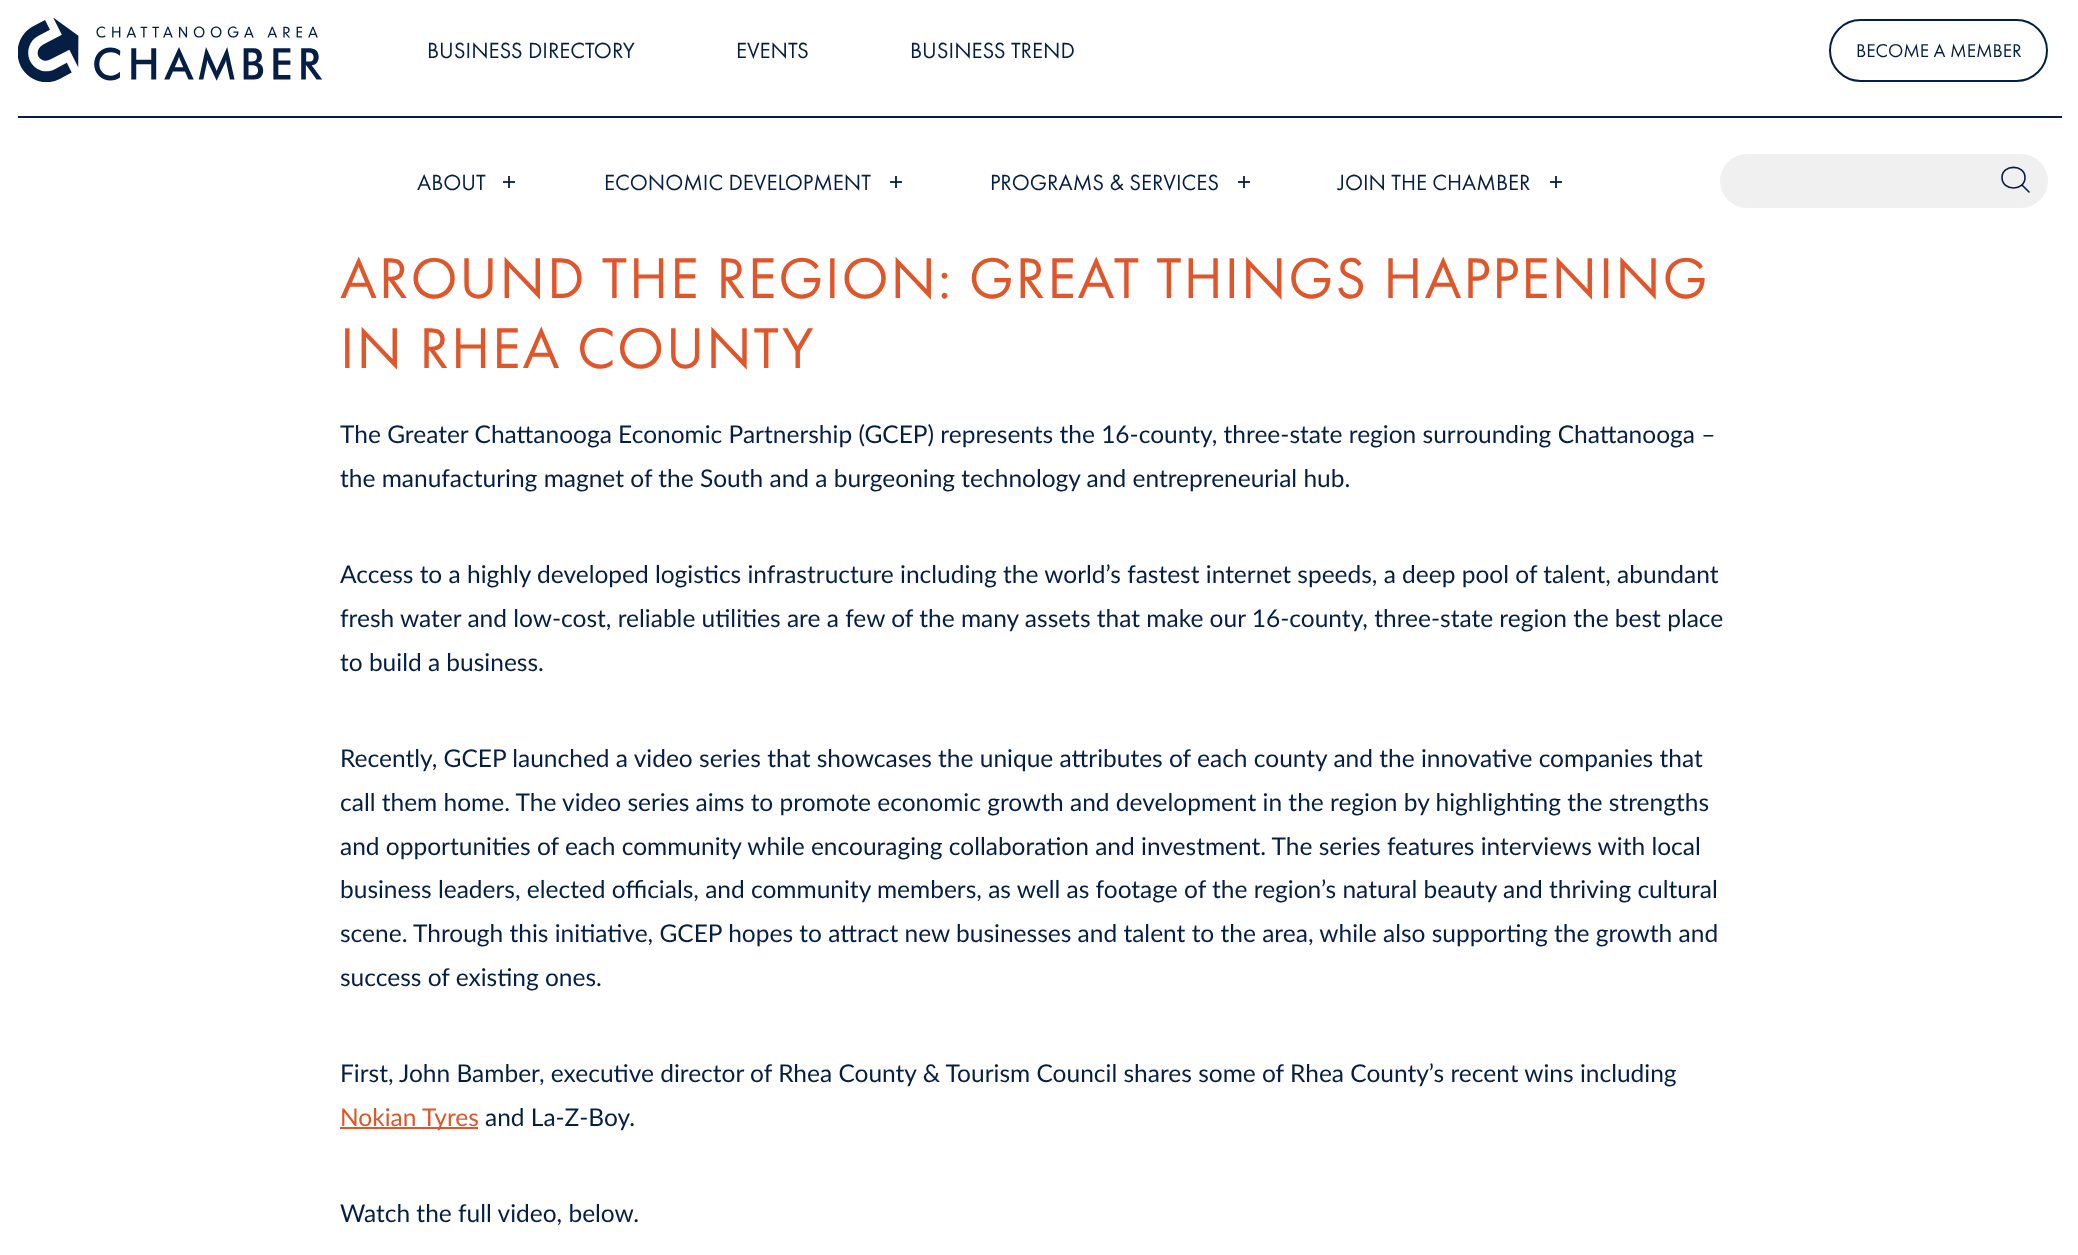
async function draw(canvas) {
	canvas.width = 2078;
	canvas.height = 1255;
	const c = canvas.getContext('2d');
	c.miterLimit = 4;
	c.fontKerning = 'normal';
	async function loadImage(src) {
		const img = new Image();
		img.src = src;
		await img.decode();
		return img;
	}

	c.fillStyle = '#fff';
	c.fillRect(0, 0, 2078, 1255);
	for (const [x, y, w, h, color] of [
		[1550, 181, 12, 2, '#1e3457'],
		[890, 181, 12, 2, '#1e3457'],
		[1238, 181, 12, 2, '#1e3457'],
		[503, 181, 12, 2, '#1e3457'],
	]) {
		c.fillStyle = color;
		c.fillRect(x, y, w, h);
	}
	c.drawImage(await loadImage('img1.png'), 18, 18, 304, 64);
	c.font = '22.75px Futura PT';
	c.fillStyle = '#051e44';
	for (const [text, x, y] of [
		['BUSINESS DIRECTORY', 427, 58],
		['EVENTS', 736, 58],
		['BUSINESS TREND', 910, 58],
	]) {
		c.fillText(text, x, y);
	}
	c.beginPath();
	c.roundRect(1830, 20, 217, 61, 30.5);
	c.strokeStyle = '#051e44';
	c.lineWidth = 2;
	c.stroke();
	c.font = '19.25px Futura PT';
	c.fillText('BECOME A MEMBER', 1856, 57);
	c.fillRect(18, 116, 2044, 2);
	c.font = '22.75px Futura PT';
	c.fillText('ABOUT', 417, 190);
	c.fillStyle = '#1e3557';
	c.fillRect(508, 176, 2, 12);
	c.fillStyle = '#072046';
	c.fillRect(508, 181, 2, 2);
	c.fillStyle = '#051e44';
	c.fillText('ECONOMIC DEVELOPMENT', 604, 190);
	c.fillStyle = '#1e3557';
	c.fillRect(895, 176, 2, 12);
	c.fillStyle = '#072046';
	c.fillRect(895, 181, 2, 2);
	c.fillStyle = '#051e44';
	c.fillText('PROGRAMS & SERVICES', 990, 190);
	c.fillStyle = '#1e3557';
	c.fillRect(1243, 176, 2, 12);
	c.fillStyle = '#072046';
	c.fillRect(1243, 181, 2, 2);
	c.fillStyle = '#051e44';
	c.fillText('JOIN THE CHAMBER', 1338, 190);
	c.fillStyle = '#1e3557';
	c.fillRect(1555, 176, 2, 12);
	c.fillStyle = '#072046';
	c.fillRect(1555, 181, 2, 2);
	c.fillStyle = '#f0f0f0';
	c.beginPath();
	c.roundRect(1720, 154, 328, 54, 27);
	c.fill();
	c.beginPath();
	c.moveTo(2025, 177.5);
	c.bezierCurveTo(2025, 191.5, 2002, 191.5, 2002, 177.5);
	c.bezierCurveTo(2002, 164, 2025, 164, 2025, 177.5);
	c.closePath();
	c.lineWidth = 1.6;
	c.stroke();
	c.beginPath();
	c.moveTo(2022, 185);
	c.lineTo(2029, 192);
	c.lineCap = 'round';
	c.stroke();
	c.letterSpacing = '1.75px';
	c.font = '59.5px Futura PT';
	c.fillStyle = '#e0562b';
	c.fillText('AROUND THE REGION: GREAT THINGS HAPPENING', 340, 298);
	c.fillText('IN RHEA COUNTY', 340, 368);
	c.letterSpacing = '0px';
	c.font = '24.5px Lato';
	c.fillStyle = '#051e44';
	for (const [text, x, y] of [
		['The Greater Chattanooga Economic Partnership (GCEP) represents the 16-county, three-state region surrounding Chattanooga –', 340, 443],
		['the manufacturing magnet of the South and a burgeoning technology and entrepreneurial hub.', 340, 487],
		['Access to a highly developed logistics infrastructure including the world’s fastest internet speeds, a deep pool of talent, abundant', 340, 583],
		['fresh water and low-cost, reliable utilities are a few of the many assets that make our 16-county, three-state region the best place', 340, 627],
		['to build a business.', 340, 671],
		['Recently, GCEP launched a video series that showcases the unique attributes of each county and the innovative companies that', 340, 767],
		['call them home. The video series aims to promote economic growth and development in the region by highlighting the strengths', 340, 811],
		['and opportunities of each community while encouraging collaboration and investment. The series features interviews with local', 340, 855],
		['business leaders, elected officials, and community members, as well as footage of the region’s natural beauty and thriving cultural', 340, 898],
		['scene. Through this initiative, GCEP hopes to attract new businesses and talent to the area, while also supporting the growth and', 340, 942],
		['success of existing ones.', 340, 986],
		['First, John Bamber, executive director of Rhea County & Tourism Council shares some of Rhea County’s recent wins including', 340, 1082],
	]) {
		c.fillText(text, x, y);
	}
	c.fillStyle = '#e0562b';
	c.fillRect(340, 1127, 138, 2);
	c.fillText('Nokian Tyres', 340, 1126);
	c.fillStyle = '#051e44';
	c.fillText('and La-Z-Boy.', 485, 1126);
	c.fillText('Watch the full video, below.', 340, 1222);
}

draw(document.querySelector('canvas'));
